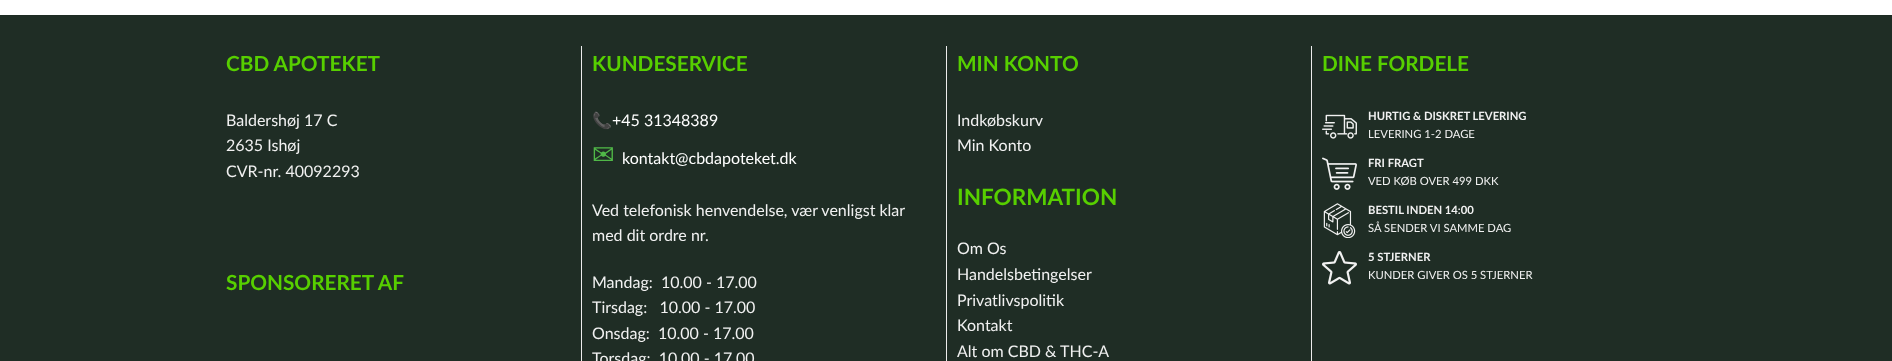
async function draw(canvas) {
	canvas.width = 1892;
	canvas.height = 361;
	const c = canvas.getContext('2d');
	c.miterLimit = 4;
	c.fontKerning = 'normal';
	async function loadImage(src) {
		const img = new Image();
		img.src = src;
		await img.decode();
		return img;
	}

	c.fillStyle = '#fff';
	c.fillRect(0, 0, 1892, 361);
	c.fillStyle = '#1f2d25';
	c.fillRect(0, 16, 1892, 345);
	c.fillStyle = '#1d2b23';
	c.fillRect(0, 15, 1892, 1);
	c.font = 'bold 20.75px Lato';
	c.fillStyle = '#57cf00';
	c.fillText('CBD APOTEKET', 226, 71);
	c.font = '16px Lato';
	c.fillStyle = '#f1f1f1';
	for (const [text, x, y] of [
		['Baldershøj 17 C', 226, 126],
		['2635 Ishøj', 226, 151],
		['CVR-nr. 40092293', 226, 177],
	]) {
		c.fillText(text, x, y);
	}
	c.font = 'bold 20.75px Lato';
	c.fillStyle = '#57cf00';
	c.fillText('SPONSORERET AF', 226, 290);
	c.fillStyle = '#ececec';
	c.fillRect(581, 46, 1, 315);
	c.fillStyle = '#57cf00';
	c.fillText('KUNDESERVICE', 592, 71);
	c.font = '16px Noto Color Emoji';
	c.fillText('📞', 592, 126);
	c.font = '16px Lato';
	c.fillStyle = '#fff';
	c.fillText('+45 31348389', 612, 126);
	c.font = '27px DejaVu Sans';
	c.fillStyle = '#50b848';
	c.fillText('✉', 592, 164);
	c.font = '16px Lato';
	c.fillStyle = '#fff';
	c.fillText('kontakt@cbdapoteket.dk', 622, 164);
	c.fillStyle = '#f1f1f1';
	for (const [text, x, y] of [
		['Ved telefonisk henvendelse, vær venligst klar', 592, 216],
		['med dit ordre nr.', 592, 241],
		['Mandag:  10.00 - 17.00', 592, 288],
		['Tirsdag:   10.00 - 17.00', 592, 313],
		['Onsdag:  10.00 - 17.00', 592, 339],
		['Torsdag:  10.00 - 17.00', 592, 364],
	]) {
		c.fillText(text, x, y);
	}
	c.fillStyle = '#ececec';
	c.fillRect(946, 46, 1, 315);
	c.font = 'bold 20.75px Lato';
	c.fillStyle = '#57cf00';
	c.fillText('MIN KONTO', 957, 71);
	c.font = '16px Lato';
	c.fillStyle = '#f1f1f1';
	c.fillText('Indkøbskurv', 957, 126);
	c.fillText('Min Konto', 957, 151);
	c.font = 'bold 22.5px Lato';
	c.fillStyle = '#57cf00';
	c.fillText('INFORMATION', 957, 205);
	c.font = '16px Lato';
	c.fillStyle = '#f1f1f1';
	for (const [text, x, y] of [
		['Om Os', 957, 254],
		['Handelsbetingelser', 957, 280],
		['Privatlivspolitik', 957, 306],
		['Kontakt', 957, 331],
		['Alt om CBD & THC-A', 957, 357],
	]) {
		c.fillText(text, x, y);
	}
	c.fillStyle = '#ececec';
	c.fillRect(1311, 46, 1, 315);
	c.font = 'bold 20.75px Lato';
	c.fillStyle = '#57cf00';
	c.fillText('DINE FORDELE', 1322, 71);
	c.drawImage(await loadImage('img1.png'), 1322, 114, 35, 25);
	c.font = 'bold 11.25px Lato';
	c.fillStyle = '#f1f1f1';
	c.fillText('HURTIG & DISKRET LEVERING', 1368, 120);
	c.font = '11.25px Lato';
	c.fillText('LEVERING 1-2 DAGE', 1368, 138);
	c.drawImage(await loadImage('img2.png'), 1322, 157, 35, 33);
	c.font = 'bold 11.25px Lato';
	c.fillText('FRI FRAGT', 1368, 167);
	c.font = '11.25px Lato';
	c.fillText('VED KØB OVER 499 DKK', 1368, 185);
	c.drawImage(await loadImage('img3.png'), 1323, 203, 33, 35);
	c.font = 'bold 11.25px Lato';
	c.fillText('BESTIL INDEN 14:00', 1368, 214);
	c.font = '11.25px Lato';
	c.fillText('SÅ SENDER VI SAMME DAG', 1368, 232);
	c.drawImage(await loadImage('img4.png'), 1322, 251, 35, 34);
	c.font = 'bold 11.25px Lato';
	c.fillText('5 STJERNER', 1368, 261);
	c.font = '11.25px Lato';
	c.fillText('KUNDER GIVER OS 5 STJERNER', 1368, 279);
}

draw(document.querySelector('canvas'));
